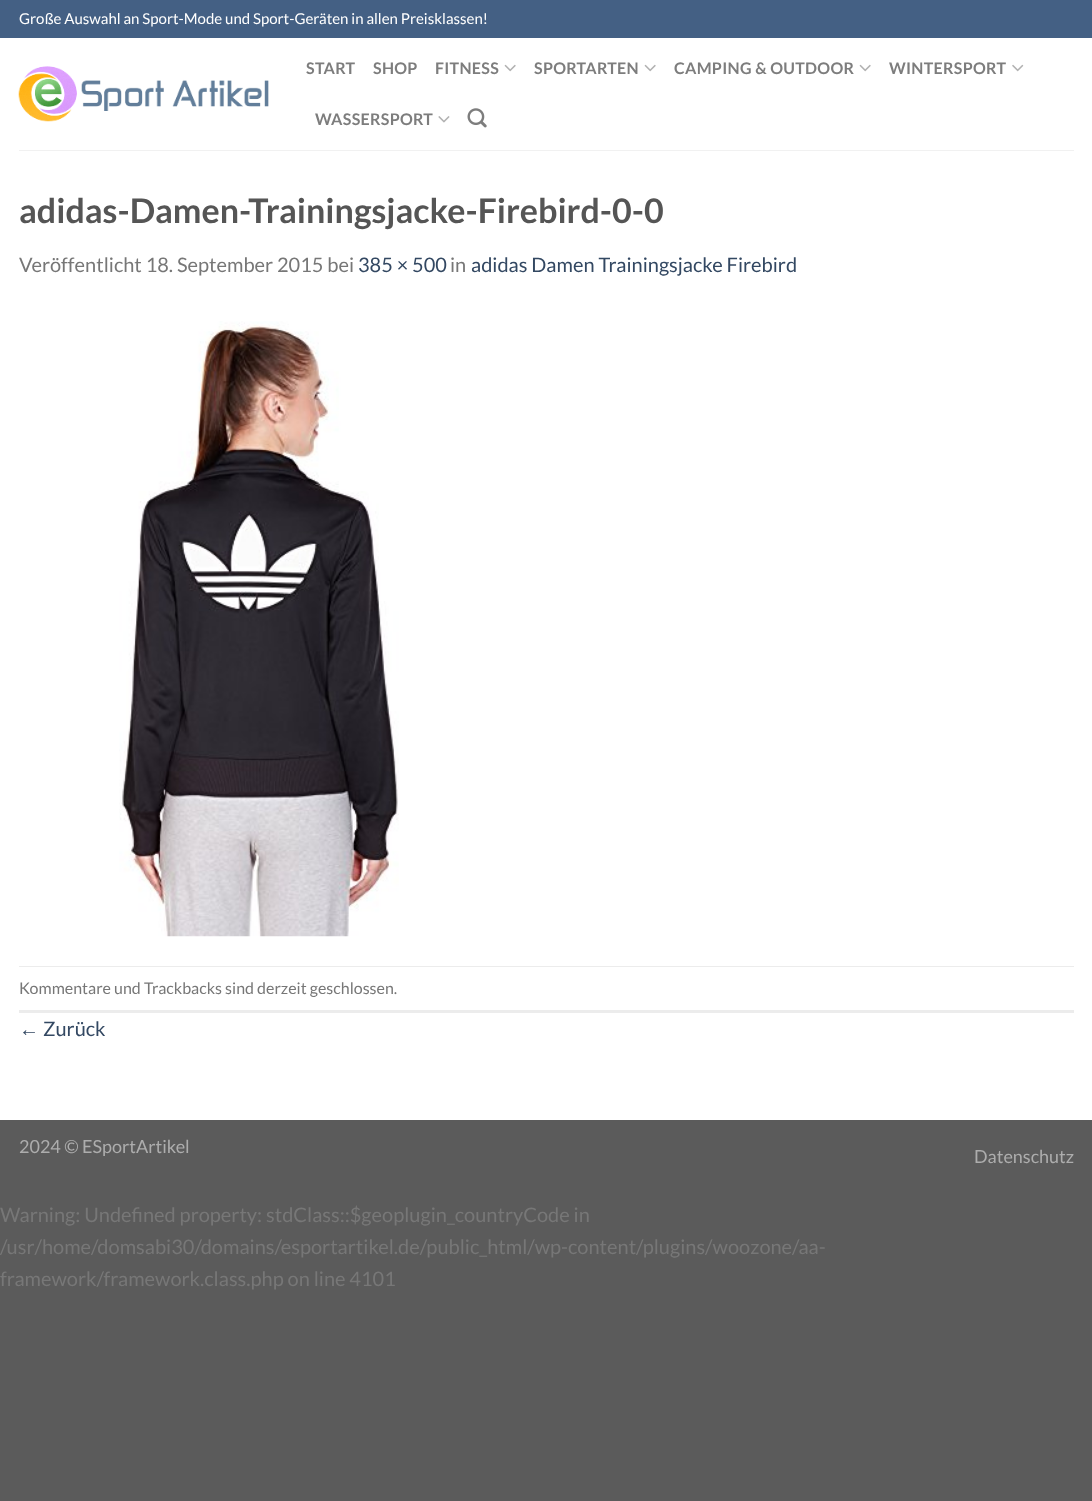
async function draw(canvas) {
	canvas.width = 1092;
	canvas.height = 1501;
	const c = canvas.getContext('2d');
	c.miterLimit = 4;
	c.fontKerning = 'normal';
	async function loadImage(src) {
		const img = new Image();
		img.src = src;
		await img.decode();
		return img;
	}

	c.fillStyle = '#5b5b5b';
	c.fillRect(0, 0, 1092, 1501);
	c.fillStyle = '#fff';
	c.fillRect(0, 38, 1092, 1082);
	c.fillStyle = '#446084';
	c.fillRect(0, 0, 1092, 38);
	c.font = '15px Lato';
	c.fillStyle = '#fff';
	c.fillText('Große Auswahl an Sport-Mode und Sport-Geräten in allen Preisklassen!', 19, 24);
	c.drawImage(await loadImage('img1.png'), 18, 66, 251, 56);
	c.letterSpacing = '0.3px';
	c.font = 'bold 16px Lato';
	c.fillStyle = '#7d7d7d';
	for (const [text, x, y] of [
		['START', 306, 74],
		['SHOP', 373, 74],
		['FITNESS', 435, 74],
	]) {
		c.fillText(text, x, y);
	}
	c.drawImage(await loadImage('img2.png'), 504, 64, 12, 8);
	c.fillText('SPORTARTEN', 534, 74);
	c.drawImage(await loadImage('img2.png'), 644, 64, 12, 8);
	c.fillText('CAMPING & OUTDOOR', 674, 74);
	c.drawImage(await loadImage('img2.png'), 859, 64, 12, 8);
	c.fillText('WINTERSPORT', 889, 74);
	c.drawImage(await loadImage('img3.png'), 1012, 64, 12, 8);
	c.fillText('WASSERSPORT', 315, 125);
	c.drawImage(await loadImage('img4.png'), 438, 116, 12, 7);
	c.drawImage(await loadImage('img5.png'), 467, 108, 20, 20);
	c.fillStyle = '#f1f1f1';
	c.fillRect(19, 150, 1055, 1);
	c.letterSpacing = '0px';
	c.font = 'bold 34px Lato';
	c.fillStyle = '#555';
	c.fillText('adidas-Damen-Trainingsjacke-Firebird-0-0', 19, 223);
	c.font = '20px Lato';
	c.fillStyle = '#777';
	c.fillText('Veröffentlicht 18. September 2015 bei', 19, 272);
	c.fillStyle = '#334862';
	c.fillText('385 × 500', 358, 272);
	c.fillStyle = '#777';
	c.fillText('in', 450, 272);
	c.fillStyle = '#334862';
	c.fillText('adidas Damen Trainingsjacke Firebird', 471, 272);
	c.drawImage(await loadImage('img6.png'), 119, 321, 280, 616);
	c.fillStyle = '#ececec';
	c.fillRect(19, 966, 1055, 1);
	c.fillRect(19, 1010, 1055, 3);
	c.font = '16px Lato';
	c.fillStyle = '#777';
	c.fillText('Kommentare und Trackbacks sind derzeit geschlossen.', 19, 994);
	c.font = '20px Liberation Sans';
	c.fillStyle = '#334862';
	c.fillText('←', 19, 1036);
	c.font = '20px Lato';
	c.fillText('Zurück', 43, 1036);
	c.font = '18px Lato';
	c.fillStyle = '#adadad';
	c.fillText('2024 © ESportArtikel', 19, 1153);
	c.fillText('Datenschutz', 974, 1163);
	c.font = '20px Lato';
	c.fillStyle = '#777';
	for (const [text, x, y] of [
		['Warning: Undefined property: stdClass::$geoplugin_countryCode in', 0, 1222],
		['/usr/home/domsabi30/domains/esportartikel.de/public_html/wp-content/plugins/woozone/aa-', 0, 1254],
		['framework/framework.class.php on line 4101', 0, 1286],
	]) {
		c.fillText(text, x, y);
	}
}

draw(document.querySelector('canvas'));
